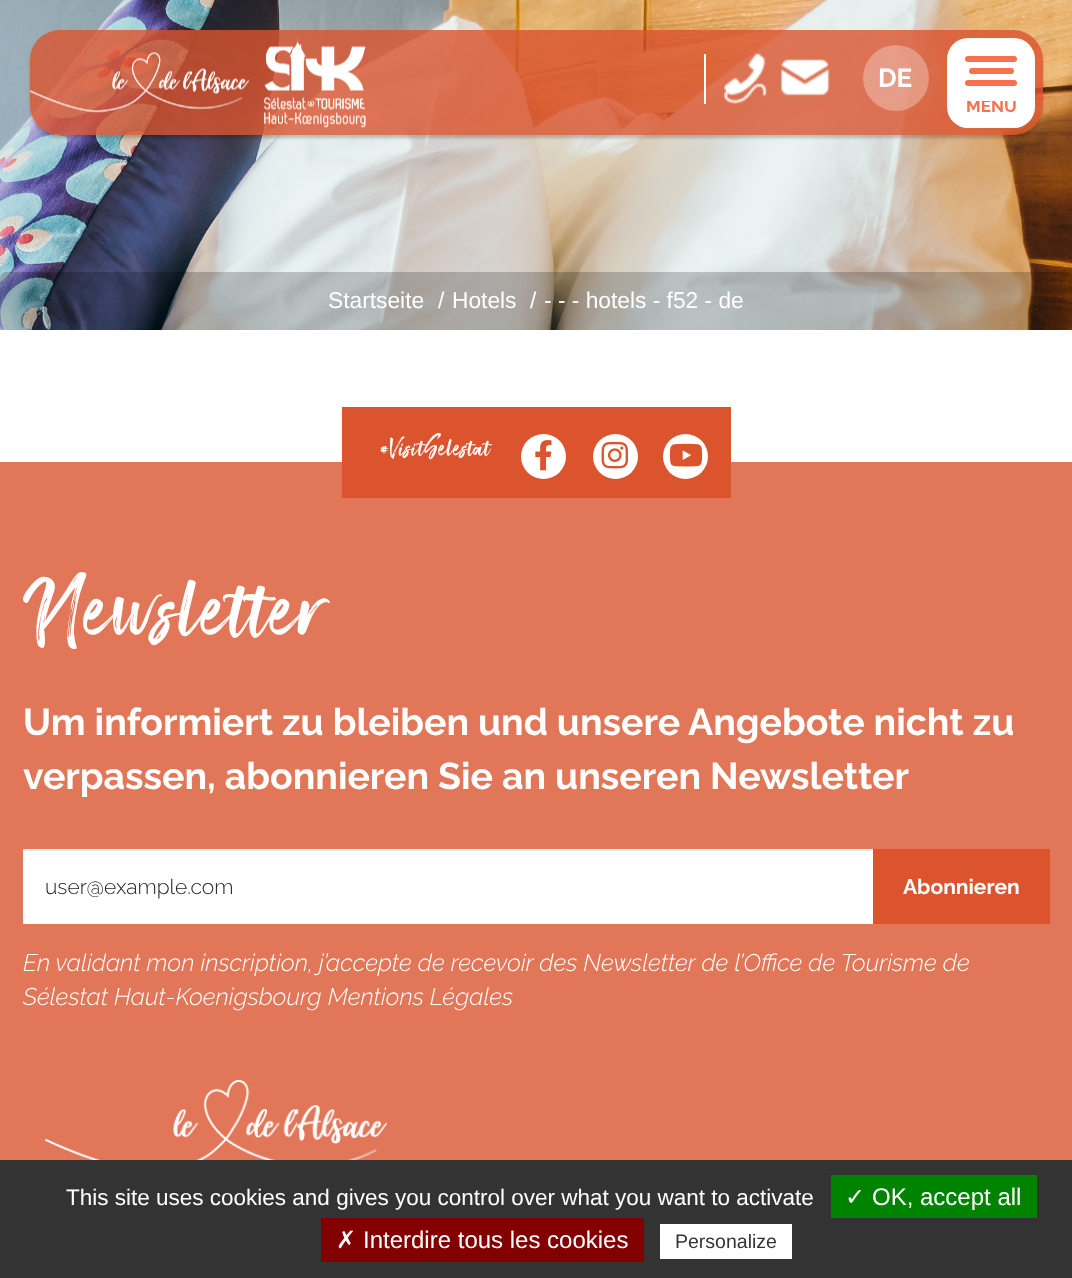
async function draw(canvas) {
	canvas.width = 1072;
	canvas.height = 1278;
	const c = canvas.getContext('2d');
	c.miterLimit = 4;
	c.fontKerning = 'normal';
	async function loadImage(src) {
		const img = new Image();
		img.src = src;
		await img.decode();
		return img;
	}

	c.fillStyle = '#fff';
	c.fillRect(0, 0, 1072, 1278);
	c.drawImage(await loadImage('img5.png'), 0, 0, 1072, 330);
	c.save();
	c.beginPath();
	c.moveTo(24, 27);
	c.lineTo(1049, 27);
	c.lineTo(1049, 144);
	c.lineTo(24, 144);
	c.closePath();
	c.moveTo(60, 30);
	c.lineTo(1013, 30);
	c.bezierCurveTo(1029.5, 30, 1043, 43.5, 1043, 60);
	c.lineTo(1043, 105);
	c.bezierCurveTo(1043, 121.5, 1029.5, 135, 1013, 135);
	c.lineTo(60, 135);
	c.bezierCurveTo(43.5, 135, 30, 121.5, 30, 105);
	c.lineTo(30, 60);
	c.bezierCurveTo(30, 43.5, 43.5, 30, 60, 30);
	c.closePath();
	c.clip('evenodd');
	c.fillStyle = '#00000033';
	c.filter = 'blur(1.5px)';
	c.beginPath();
	c.roundRect(30, 33, 1013, 105, 30);
	c.fill();
	c.filter = 'none';
	c.restore();
	c.fillStyle = '#db542ecc';
	c.beginPath();
	c.roundRect(30, 30, 1013, 105, 30);
	c.fill();
	c.drawImage(await loadImage('img1.png'), 30, 52, 219, 61);
	c.drawImage(await loadImage('img2.png'), 264, 37, 102, 91);
	c.fillStyle = '#fff';
	c.fillRect(704, 54, 2, 50);
	c.drawImage(await loadImage('img3.png'), 724, 53, 43, 51);
	c.drawImage(await loadImage('img4.png'), 781, 59, 49, 37);
	c.fillStyle = '#ffffff4d';
	c.beginPath();
	c.arc(896, 78, 33, 0, 2 * Math.PI);
	c.fill();
	c.font = 'bold 26px Raleway';
	c.fillStyle = '#fff';
	c.fillText('DE', 878, 87);
	c.beginPath();
	c.roundRect(947, 38, 88, 90, 21);
	c.fill();
	c.fillStyle = '#f7714c';
	c.beginPath();
	c.roundRect(965, 56, 52, 6, 3);
	c.fill();
	c.beginPath();
	c.roundRect(969, 68, 45, 6, 3);
	c.fill();
	c.beginPath();
	c.roundRect(965, 80, 52, 6, 3);
	c.fill();
	c.save();
	c.beginPath();
	c.rect(960, 101, 62, 13);
	c.clip();
	c.font = 'bold 17px Raleway';
	c.fillText('MENU', 966, 112);
	c.restore();
	c.fillStyle = '#00000033';
	c.beginPath();
	c.roundRect(0, 272, 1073, 58, 6);
	c.fill();
	c.font = '22.75px Liberation Sans';
	c.fillStyle = '#fff';
	for (const [text, x, y] of [
		['Startseite', 328, 308],
		['/', 438, 308],
		['Hotels', 452, 308],
		['/', 530, 308],
		['- - - hotels - f52 - de', 544, 308],
	]) {
		c.fillText(text, x, y);
	}
	c.fillStyle = '#e27658';
	c.fillRect(0, 462, 1072, 698);
	c.fillStyle = '#db542e';
	c.fillRect(342, 407, 389, 91);
	c.font = '31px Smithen';
	c.fillStyle = '#fff';
	c.fillText('#VisitSelestat', 379, 455);
	c.beginPath();
	c.arc(543.5, 456.5, 22.5, 0, 2 * Math.PI);
	c.fill();
	c.drawImage(await loadImage('img6.png'), 535, 440, 17, 31);
	c.beginPath();
	c.arc(615.5, 456.5, 22.5, 0, 2 * Math.PI);
	c.fill();
	c.drawImage(await loadImage('img7.png'), 601, 441, 27, 28);
	c.beginPath();
	c.arc(685.5, 456.5, 22.5, 0, 2 * Math.PI);
	c.fill();
	c.drawImage(await loadImage('img8.png'), 669, 443, 34, 24);
	c.font = '106px Smithen';
	c.fillText('Newsletter', 23, 634);
	c.font = 'bold 37.45px Raleway';
	c.fillText('Um informiert zu bleiben und unsere Angebote nicht zu', 23, 735);
	c.fillText('verpassen, abonnieren Sie an unseren Newsletter', 23, 789);
	c.fillRect(23, 851, 850, 73);
	c.fillStyle = '#ececec';
	c.fillRect(23, 849, 850, 2);
	c.font = '300 21px Raleway';
	c.fillStyle = '#222';
	c.fillText('user@example.com', 45, 894);
	c.fillStyle = '#db542e';
	c.fillRect(873, 849, 177, 75);
	c.font = 'bold 21px Raleway';
	c.fillStyle = '#fff';
	c.fillText('Abonnieren', 903, 894);
	c.font = 'italic 300 24px Raleway';
	c.fillText('En validant mon inscription, j’accepte de recevoir des Newsletter de l’Office de Tourisme de', 23, 971);
	c.fillText('Sélestat Haut-Koenigsbourg Mentions Légales', 23, 1005);
	c.drawImage(await loadImage('img9.png'), 45, 1080, 342, 80);
	c.fillStyle = '#333';
	c.fillRect(0, 1160, 1072, 118);
	c.font = '22.5px Liberation Sans';
	c.fillStyle = '#fff';
	c.fillText('This site uses cookies and gives you control over what you want to activate', 66, 1205);
	c.fillStyle = '#008300';
	c.fillRect(831, 1175, 206, 43);
	c.font = '24px DejaVu Sans';
	c.fillStyle = '#fff';
	c.fillText('✓', 845, 1205);
	c.font = '24px Liberation Sans';
	c.fillText('OK, accept all', 872, 1205);
	c.fillStyle = '#830000';
	c.fillRect(321, 1218, 323, 44);
	c.font = '24px DejaVu Sans';
	c.fillStyle = '#fff';
	c.fillText('✗', 336, 1248);
	c.font = '24px Liberation Sans';
	c.fillText('Interdire tous les cookies', 363, 1248);
	c.fillRect(660, 1224, 132, 35);
	c.font = '19.5px Liberation Sans';
	c.fillStyle = '#333';
	c.fillText('Personalize', 675, 1248);
}

draw(document.querySelector('canvas'));
